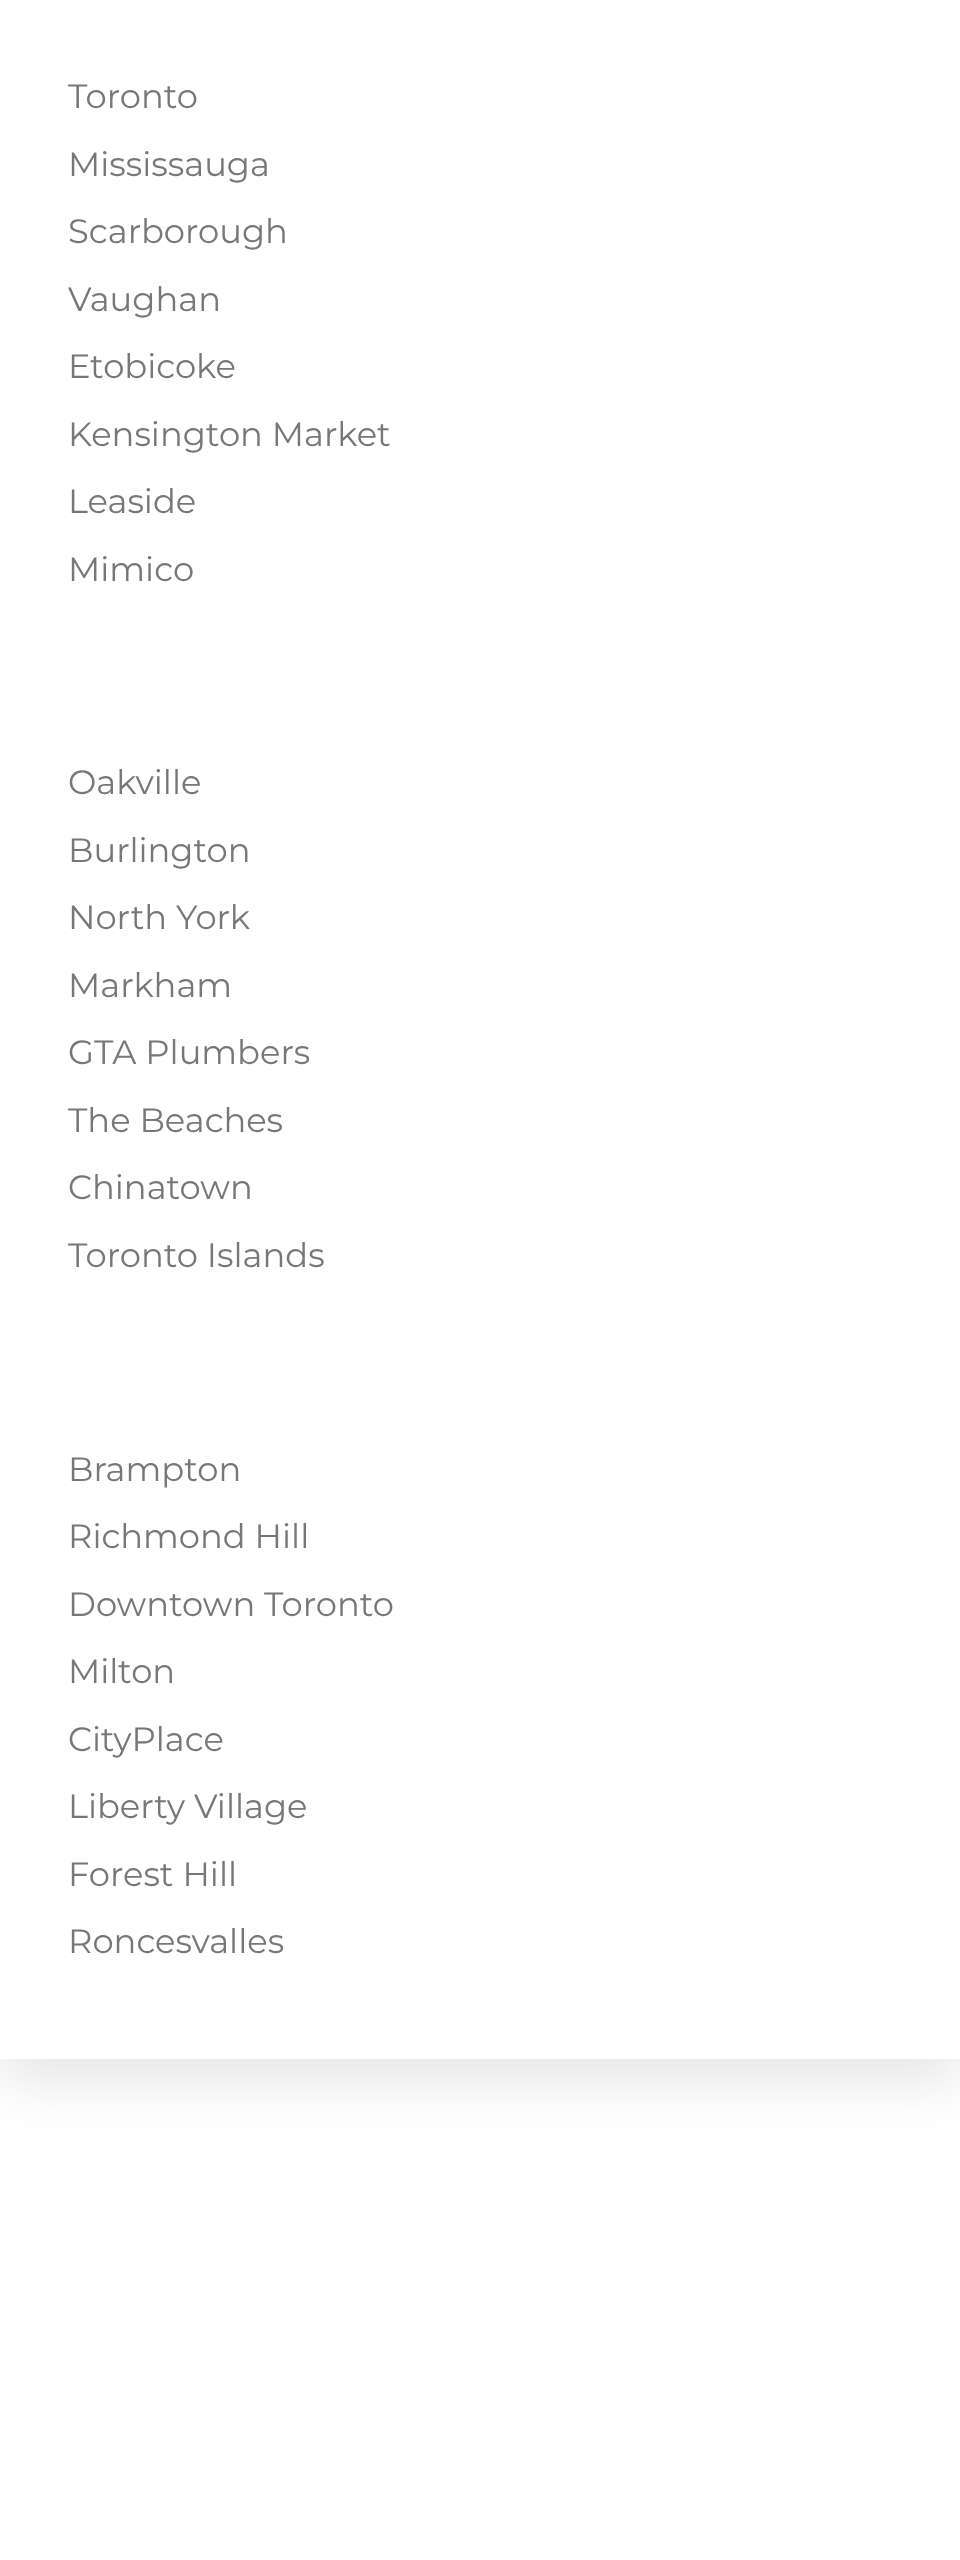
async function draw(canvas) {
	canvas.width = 960;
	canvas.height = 2560;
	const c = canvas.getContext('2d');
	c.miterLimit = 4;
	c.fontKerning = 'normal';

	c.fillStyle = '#fff';
	c.fillRect(0, 0, 960, 2560);
	c.fillStyle = '#0000001a';
	c.filter = 'blur(28px)';
	c.beginPath();
	c.rect(0, 23, 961, 2058);
	c.fill();
	c.filter = 'none';
	c.fillStyle = '#fff';
	c.fillRect(0, 0, 960, 2059);
	c.font = '33.75px Montserrat';
	c.fillStyle = '#777';
	for (const [text, x, y] of [
		['Toronto', 68, 108],
		['Mississauga', 68, 176],
		['Scarborough', 68, 243],
		['Vaughan', 68, 311],
		['Etobicoke', 68, 378],
		['Kensington Market', 68, 446],
		['Leaside', 68, 513],
		['Mimico', 68, 581],
		['Oakville', 68, 794],
		['Burlington', 68, 862],
		['North York', 68, 929],
		['Markham', 68, 997],
		['GTA Plumbers', 68, 1064],
		['The Beaches', 68, 1132],
		['Chinatown', 68, 1199],
		['Toronto Islands', 68, 1267],
		['Brampton', 68, 1481],
		['Richmond Hill', 68, 1548],
		['Downtown Toronto', 68, 1616],
		['Milton', 68, 1683],
		['CityPlace', 68, 1751],
		['Liberty Village', 68, 1818],
		['Forest Hill', 68, 1886],
		['Roncesvalles', 68, 1953],
	]) {
		c.fillText(text, x, y);
	}
}

draw(document.querySelector('canvas'));
